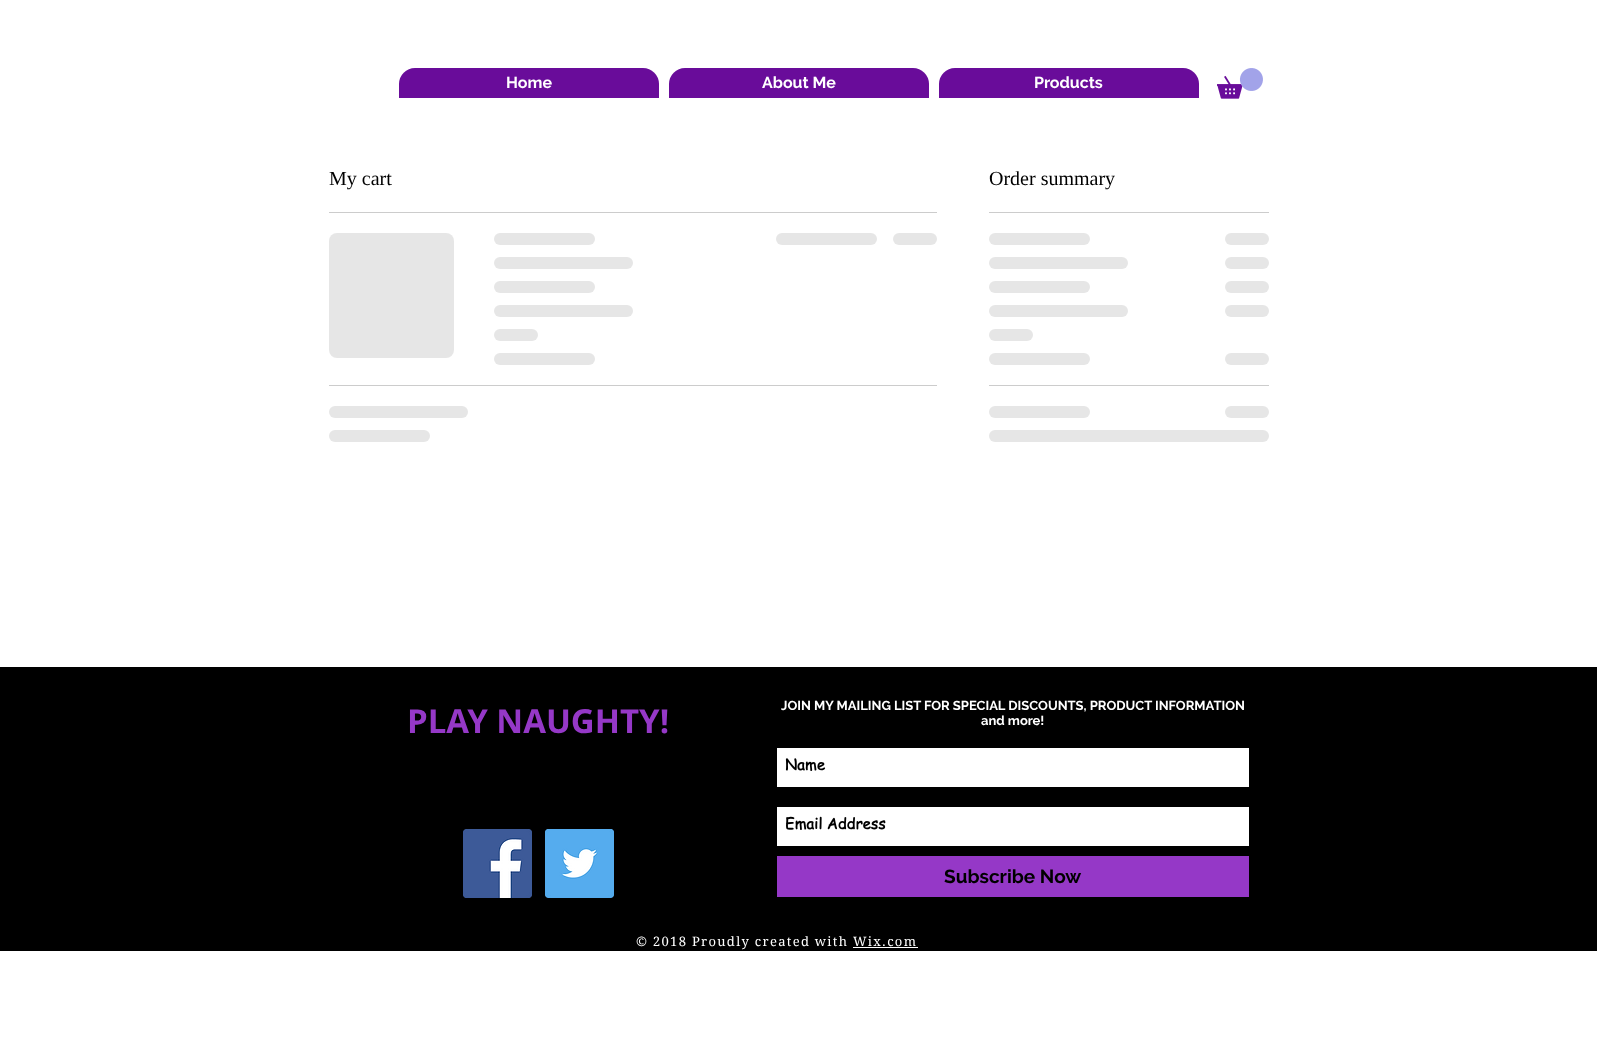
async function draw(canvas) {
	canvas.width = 1597;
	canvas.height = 1044;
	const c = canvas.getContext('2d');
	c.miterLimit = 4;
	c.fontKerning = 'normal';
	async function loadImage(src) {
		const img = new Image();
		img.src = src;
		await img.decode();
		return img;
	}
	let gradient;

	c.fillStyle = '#fff';
	c.fillRect(0, 0, 1597, 1044);
	c.fillStyle = '#690c9a';
	c.beginPath();
	c.roundRect(399, 68, 260, 30, [16, 16, 0, 0]);
	c.fill();
	c.font = 'bold 16px Raleway';
	c.fillStyle = '#fff';
	c.fillText('Home', 506, 88);
	c.fillStyle = '#690c9a';
	c.beginPath();
	c.roundRect(669, 68, 260, 30, [16, 16, 0, 0]);
	c.fill();
	c.fillStyle = '#fff';
	c.fillText('About Me', 762, 88);
	c.fillStyle = '#690c9a';
	c.beginPath();
	c.roundRect(939, 68, 260, 30, [16, 16, 0, 0]);
	c.fill();
	c.fillStyle = '#fff';
	c.fillText('Products', 1034, 88);
	c.drawImage(await loadImage('img1.png'), 1217, 68, 46, 31);
	c.fillStyle = '#ccc';
	c.fillRect(329, 212, 608, 1);
	c.font = '20px Liberation Serif';
	c.fillStyle = '#000';
	c.fillText('My cart', 329, 185);
	gradient = c.createLinearGradient(329, 296, 829, 296);
	gradient.addColorStop(0.25, '#e6e6e6');
	gradient.addColorStop(0.37, '#ccc');
	gradient.addColorStop(0.63, '#e6e6e6');
	c.fillStyle = gradient;
	c.beginPath();
	c.roundRect(329, 233, 125, 125, 8);
	c.fill();
	gradient = c.createLinearGradient(494, 239, 898, 239);
	gradient.addColorStop(0.25, '#e6e6e6');
	gradient.addColorStop(0.37, '#ccc');
	gradient.addColorStop(0.63, '#e6e6e6');
	c.fillStyle = gradient;
	c.beginPath();
	c.roundRect(494, 233, 101, 12, 6);
	c.fill();
	gradient = c.createLinearGradient(494, 263, 1050, 263);
	gradient.addColorStop(0.25, '#e6e6e6');
	gradient.addColorStop(0.37, '#ccc');
	gradient.addColorStop(0.63, '#e6e6e6');
	c.fillStyle = gradient;
	c.beginPath();
	c.roundRect(494, 257, 139, 12, 6);
	c.fill();
	gradient = c.createLinearGradient(494, 287, 898, 287);
	gradient.addColorStop(0.25, '#e6e6e6');
	gradient.addColorStop(0.37, '#ccc');
	gradient.addColorStop(0.63, '#e6e6e6');
	c.fillStyle = gradient;
	c.beginPath();
	c.roundRect(494, 281, 101, 12, 6);
	c.fill();
	gradient = c.createLinearGradient(494, 311, 1050, 311);
	gradient.addColorStop(0.25, '#e6e6e6');
	gradient.addColorStop(0.37, '#ccc');
	gradient.addColorStop(0.63, '#e6e6e6');
	c.fillStyle = gradient;
	c.beginPath();
	c.roundRect(494, 305, 139, 12, 6);
	c.fill();
	gradient = c.createLinearGradient(494, 335, 670, 335);
	gradient.addColorStop(0.25, '#e6e6e6');
	gradient.addColorStop(0.37, '#ccc');
	gradient.addColorStop(0.63, '#e6e6e6');
	c.fillStyle = gradient;
	c.beginPath();
	c.roundRect(494, 329, 44, 12, 6);
	c.fill();
	gradient = c.createLinearGradient(494, 359, 898, 359);
	gradient.addColorStop(0.25, '#e6e6e6');
	gradient.addColorStop(0.37, '#ccc');
	gradient.addColorStop(0.63, '#e6e6e6');
	c.fillStyle = gradient;
	c.beginPath();
	c.roundRect(494, 353, 101, 12, 6);
	c.fill();
	gradient = c.createLinearGradient(776, 239, 1180, 239);
	gradient.addColorStop(0.25, '#e6e6e6');
	gradient.addColorStop(0.37, '#ccc');
	gradient.addColorStop(0.63, '#e6e6e6');
	c.fillStyle = gradient;
	c.beginPath();
	c.roundRect(776, 233, 101, 12, 6);
	c.fill();
	gradient = c.createLinearGradient(893, 239, 1069, 239);
	gradient.addColorStop(0.25, '#e6e6e6');
	gradient.addColorStop(0.37, '#ccc');
	gradient.addColorStop(0.63, '#e6e6e6');
	c.fillStyle = gradient;
	c.beginPath();
	c.roundRect(893, 233, 44, 12, 6);
	c.fill();
	c.fillStyle = '#ccc';
	c.fillRect(329, 385, 608, 1);
	gradient = c.createLinearGradient(329, 412, 885, 412);
	gradient.addColorStop(0.25, '#e6e6e6');
	gradient.addColorStop(0.37, '#ccc');
	gradient.addColorStop(0.63, '#e6e6e6');
	c.fillStyle = gradient;
	c.beginPath();
	c.roundRect(329, 406, 139, 12, 6);
	c.fill();
	gradient = c.createLinearGradient(329, 436, 733, 436);
	gradient.addColorStop(0.25, '#e6e6e6');
	gradient.addColorStop(0.37, '#ccc');
	gradient.addColorStop(0.63, '#e6e6e6');
	c.fillStyle = gradient;
	c.beginPath();
	c.roundRect(329, 430, 101, 12, 6);
	c.fill();
	c.fillStyle = '#ccc';
	c.fillRect(989, 212, 280, 1);
	c.fillStyle = '#000';
	c.fillText('Order summary', 989, 185);
	gradient = c.createLinearGradient(989, 239, 1393, 239);
	gradient.addColorStop(0.25, '#e6e6e6');
	gradient.addColorStop(0.37, '#ccc');
	gradient.addColorStop(0.63, '#e6e6e6');
	c.fillStyle = gradient;
	c.beginPath();
	c.roundRect(989, 233, 101, 12, 6);
	c.fill();
	gradient = c.createLinearGradient(1225, 239, 1401, 239);
	gradient.addColorStop(0.25, '#e6e6e6');
	gradient.addColorStop(0.37, '#ccc');
	gradient.addColorStop(0.63, '#e6e6e6');
	c.fillStyle = gradient;
	c.beginPath();
	c.roundRect(1225, 233, 44, 12, 6);
	c.fill();
	gradient = c.createLinearGradient(989, 263, 1545, 263);
	gradient.addColorStop(0.25, '#e6e6e6');
	gradient.addColorStop(0.37, '#ccc');
	gradient.addColorStop(0.63, '#e6e6e6');
	c.fillStyle = gradient;
	c.beginPath();
	c.roundRect(989, 257, 139, 12, 6);
	c.fill();
	gradient = c.createLinearGradient(1225, 263, 1401, 263);
	gradient.addColorStop(0.25, '#e6e6e6');
	gradient.addColorStop(0.37, '#ccc');
	gradient.addColorStop(0.63, '#e6e6e6');
	c.fillStyle = gradient;
	c.beginPath();
	c.roundRect(1225, 257, 44, 12, 6);
	c.fill();
	gradient = c.createLinearGradient(989, 287, 1393, 287);
	gradient.addColorStop(0.25, '#e6e6e6');
	gradient.addColorStop(0.37, '#ccc');
	gradient.addColorStop(0.63, '#e6e6e6');
	c.fillStyle = gradient;
	c.beginPath();
	c.roundRect(989, 281, 101, 12, 6);
	c.fill();
	gradient = c.createLinearGradient(1225, 287, 1401, 287);
	gradient.addColorStop(0.25, '#e6e6e6');
	gradient.addColorStop(0.37, '#ccc');
	gradient.addColorStop(0.63, '#e6e6e6');
	c.fillStyle = gradient;
	c.beginPath();
	c.roundRect(1225, 281, 44, 12, 6);
	c.fill();
	gradient = c.createLinearGradient(989, 311, 1545, 311);
	gradient.addColorStop(0.25, '#e6e6e6');
	gradient.addColorStop(0.37, '#ccc');
	gradient.addColorStop(0.63, '#e6e6e6');
	c.fillStyle = gradient;
	c.beginPath();
	c.roundRect(989, 305, 139, 12, 6);
	c.fill();
	gradient = c.createLinearGradient(1225, 311, 1401, 311);
	gradient.addColorStop(0.25, '#e6e6e6');
	gradient.addColorStop(0.37, '#ccc');
	gradient.addColorStop(0.63, '#e6e6e6');
	c.fillStyle = gradient;
	c.beginPath();
	c.roundRect(1225, 305, 44, 12, 6);
	c.fill();
	gradient = c.createLinearGradient(989, 335, 1165, 335);
	gradient.addColorStop(0.25, '#e6e6e6');
	gradient.addColorStop(0.37, '#ccc');
	gradient.addColorStop(0.63, '#e6e6e6');
	c.fillStyle = gradient;
	c.beginPath();
	c.roundRect(989, 329, 44, 12, 6);
	c.fill();
	gradient = c.createLinearGradient(989, 359, 1393, 359);
	gradient.addColorStop(0.25, '#e6e6e6');
	gradient.addColorStop(0.37, '#ccc');
	gradient.addColorStop(0.63, '#e6e6e6');
	c.fillStyle = gradient;
	c.beginPath();
	c.roundRect(989, 353, 101, 12, 6);
	c.fill();
	gradient = c.createLinearGradient(1225, 359, 1401, 359);
	gradient.addColorStop(0.25, '#e6e6e6');
	gradient.addColorStop(0.37, '#ccc');
	gradient.addColorStop(0.63, '#e6e6e6');
	c.fillStyle = gradient;
	c.beginPath();
	c.roundRect(1225, 353, 44, 12, 6);
	c.fill();
	c.fillStyle = '#ccc';
	c.fillRect(989, 385, 280, 1);
	gradient = c.createLinearGradient(989, 412, 1393, 412);
	gradient.addColorStop(0.25, '#e6e6e6');
	gradient.addColorStop(0.37, '#ccc');
	gradient.addColorStop(0.63, '#e6e6e6');
	c.fillStyle = gradient;
	c.beginPath();
	c.roundRect(989, 406, 101, 12, 6);
	c.fill();
	gradient = c.createLinearGradient(1225, 412, 1401, 412);
	gradient.addColorStop(0.25, '#e6e6e6');
	gradient.addColorStop(0.37, '#ccc');
	gradient.addColorStop(0.63, '#e6e6e6');
	c.fillStyle = gradient;
	c.beginPath();
	c.roundRect(1225, 406, 44, 12, 6);
	c.fill();
	gradient = c.createLinearGradient(989, 436, 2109, 436);
	gradient.addColorStop(0.25, '#e6e6e6');
	gradient.addColorStop(0.37, '#ccc');
	gradient.addColorStop(0.63, '#e6e6e6');
	c.fillStyle = gradient;
	c.beginPath();
	c.roundRect(989, 430, 280, 12, 6);
	c.fill();
	c.fillStyle = '#000';
	c.fillRect(0, 667, 1597, 284);
	c.font = 'bold 33px Open Sans';
	c.fillStyle = '#9538c7';
	c.fillText('PLAY NAUGHTY!', 407, 733);
	c.font = 'bold 13px Raleway';
	c.fillStyle = '#fff';
	c.fillText('JOIN MY MAILING LIST FOR SPECIAL DISCOUNTS, PRODUCT INFORMATION', 781, 710);
	c.fillText('and more!', 981, 725);
	c.fillRect(777, 748, 472, 39);
	c.font = 'bold 15px "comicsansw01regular"';
	c.fillStyle = '#000';
	c.fillText('Name', 785, 770);
	c.fillStyle = '#fff';
	c.fillRect(777, 807, 472, 39);
	c.fillStyle = '#000';
	c.fillText('Email Address', 785, 829);
	c.fillStyle = '#9538c7';
	c.fillRect(777, 856, 472, 41);
	c.font = 'bold 19px Raleway';
	c.fillStyle = '#000';
	c.fillText('Subscribe Now', 944, 883);
	c.drawImage(await loadImage('img2.png'), 463, 829, 69, 69);
	c.drawImage(await loadImage('img3.png'), 545, 829, 69, 69);
	c.letterSpacing = '1.3px';
	c.font = '13px "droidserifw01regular"';
	c.fillStyle = '#fff';
	c.fillText('© 2018 Proudly created with Wix.com', 636, 946);
	c.fillRect(853, 947, 65, 1);
}

draw(document.querySelector('canvas'));
